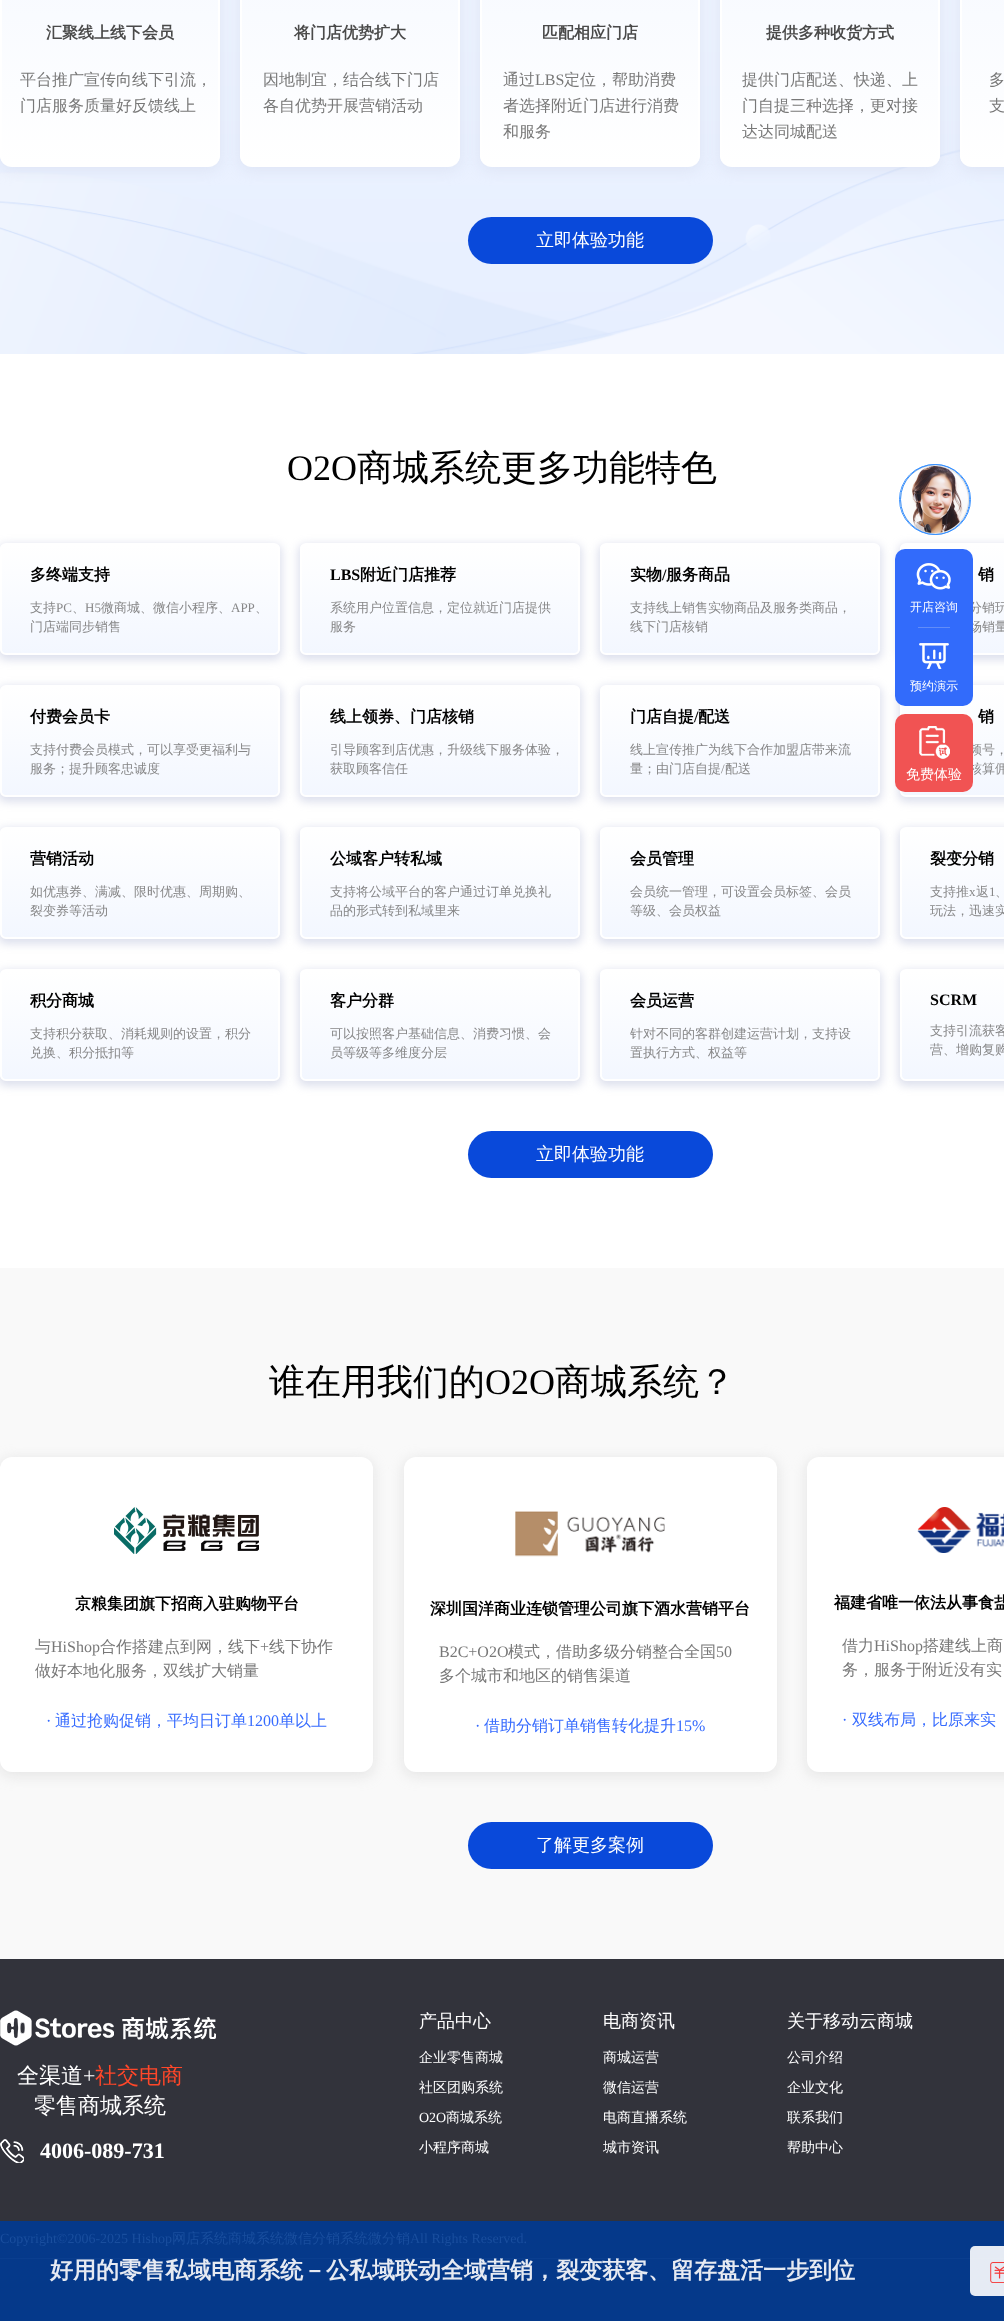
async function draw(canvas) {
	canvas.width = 1004;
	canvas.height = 2321;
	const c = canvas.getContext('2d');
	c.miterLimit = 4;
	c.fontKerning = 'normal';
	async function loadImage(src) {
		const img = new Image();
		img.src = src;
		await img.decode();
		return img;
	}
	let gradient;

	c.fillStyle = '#fff';
	c.fillRect(0, 0, 1004, 2321);
	c.drawImage(await loadImage('img1.png'), 0, 0, 1004, 354);
	c.fillStyle = '#cbd1e25c';
	c.filter = 'blur(7px)';
	c.beginPath();
	c.roundRect(-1, -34, 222, 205, 13);
	c.fill();
	c.filter = 'none';
	c.save();
	c.beginPath();
	c.roundRect(0, -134, 220, 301, 12);
	c.clip();
	gradient = c.createLinearGradient(110, -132, 110, 165);
	gradient.addColorStop(0, '#f3f7ff');
	gradient.addColorStop(1, '#fff');
	c.fillStyle = gradient;
	c.fillRect(0, 0, 220, 165);
	c.restore();
	c.beginPath();
	c.roundRect(1, -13, 218, 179, 11);
	c.strokeStyle = '#fff';
	c.lineWidth = 2;
	c.stroke();
	c.font = 'bold 16px WenQuanYi Zen Hei';
	c.fillStyle = '#4a4a4a';
	c.fillText('汇聚线上线下会员', 46, 38);
	c.font = '500 16px WenQuanYi Zen Hei';
	c.fillStyle = '#787878';
	c.fillText('平台推广宣传向线下引流，', 20, 85);
	c.fillText('门店服务质量好反馈线上', 20, 111);
	c.fillStyle = '#cbd1e25c';
	c.filter = 'blur(7px)';
	c.beginPath();
	c.roundRect(239, -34, 222, 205, 13);
	c.fill();
	c.filter = 'none';
	c.save();
	c.beginPath();
	c.roundRect(240, -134, 220, 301, 12);
	c.clip();
	gradient = c.createLinearGradient(350, -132, 350, 165);
	gradient.addColorStop(0, '#f3f7ff');
	gradient.addColorStop(1, '#fff');
	c.fillStyle = gradient;
	c.fillRect(240, 0, 220, 165);
	c.restore();
	c.beginPath();
	c.roundRect(241, -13, 218, 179, 11);
	c.stroke();
	c.font = 'bold 16px WenQuanYi Zen Hei';
	c.fillStyle = '#4a4a4a';
	c.fillText('将门店优势扩大', 294, 38);
	c.font = '500 16px WenQuanYi Zen Hei';
	c.fillStyle = '#787878';
	c.fillText('因地制宜，结合线下门店', 263, 85);
	c.fillText('各自优势开展营销活动', 263, 111);
	c.fillStyle = '#cbd1e25c';
	c.filter = 'blur(7px)';
	c.beginPath();
	c.roundRect(479, -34, 222, 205, 13);
	c.fill();
	c.filter = 'none';
	c.save();
	c.beginPath();
	c.roundRect(480, -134, 220, 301, 12);
	c.clip();
	gradient = c.createLinearGradient(590, -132, 590, 165);
	gradient.addColorStop(0, '#f3f7ff');
	gradient.addColorStop(1, '#fff');
	c.fillStyle = gradient;
	c.fillRect(480, 0, 220, 165);
	c.restore();
	c.beginPath();
	c.roundRect(481, -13, 218, 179, 11);
	c.stroke();
	c.font = 'bold 16px WenQuanYi Zen Hei';
	c.fillStyle = '#4a4a4a';
	c.fillText('匹配相应门店', 542, 38);
	c.font = '500 16px WenQuanYi Zen Hei';
	c.fillStyle = '#787878';
	c.fillText('通过', 503, 85);
	c.font = '16px Liberation Serif';
	c.fillText('LBS', 535, 85);
	c.font = '500 16px WenQuanYi Zen Hei';
	for (const [text, x, y] of [
		['定位，帮助消费', 564, 85],
		['者选择附近门店进行消费', 503, 111],
		['和服务', 503, 137],
	]) {
		c.fillText(text, x, y);
	}
	c.fillStyle = '#cbd1e25c';
	c.filter = 'blur(7px)';
	c.beginPath();
	c.roundRect(719, -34, 222, 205, 13);
	c.fill();
	c.filter = 'none';
	c.save();
	c.beginPath();
	c.roundRect(720, -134, 220, 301, 12);
	c.clip();
	gradient = c.createLinearGradient(830, -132, 830, 165);
	gradient.addColorStop(0, '#f3f7ff');
	gradient.addColorStop(1, '#fff');
	c.fillStyle = gradient;
	c.fillRect(720, 0, 220, 165);
	c.restore();
	c.beginPath();
	c.roundRect(721, -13, 218, 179, 11);
	c.stroke();
	c.font = 'bold 16px WenQuanYi Zen Hei';
	c.fillStyle = '#4a4a4a';
	c.fillText('提供多种收货方式', 766, 38);
	c.font = '500 16px WenQuanYi Zen Hei';
	c.fillStyle = '#787878';
	for (const [text, x, y] of [
		['提供门店配送、快递、上', 742, 85],
		['门自提三种选择，更对接', 742, 111],
		['达达同城配送', 742, 137],
	]) {
		c.fillText(text, x, y);
	}
	c.fillStyle = '#cbd1e25c';
	c.filter = 'blur(7px)';
	c.beginPath();
	c.roundRect(959, -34, 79, 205, 13);
	c.fill();
	c.filter = 'none';
	c.save();
	c.beginPath();
	c.roundRect(960, -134, 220, 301, 12);
	c.clip();
	gradient = c.createLinearGradient(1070, -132, 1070, 165);
	gradient.addColorStop(0, '#f3f7ff');
	gradient.addColorStop(1, '#fff');
	c.fillStyle = gradient;
	c.fillRect(960, 0, 44, 165);
	c.restore();
	c.beginPath();
	c.roundRect(961, -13, 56, 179, 11);
	c.stroke();
	c.fillStyle = '#787878';
	c.fillText('多', 989, 85);
	c.fillText('支', 989, 111);
	c.fillStyle = '#0949da';
	c.beginPath();
	c.roundRect(468, 217, 245, 47, 23.5);
	c.fill();
	c.font = '500 18px WenQuanYi Zen Hei';
	c.fillStyle = '#fff';
	c.fillText('立即体验功能', 536, 246);
	c.font = '36px Liberation Serif';
	c.fillStyle = '#000';
	c.fillText('O2O', 287, 480);
	c.font = '500 36px WenQuanYi Zen Hei';
	c.fillText('商城系统更多功能特色', 357, 480);
	c.fillStyle = '#9fa6cb59';
	c.filter = 'blur(4px)';
	c.beginPath();
	c.roundRect(-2, 544, 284, 116, 8);
	c.fill();
	c.filter = 'none';
	c.save();
	c.beginPath();
	c.roundRect(0, 543, 280, 112, 6);
	c.clip();
	gradient = c.createLinearGradient(140, 653, 140, 545);
	gradient.addColorStop(0, '#f3f7ff');
	gradient.addColorStop(1, '#fff');
	c.fillStyle = gradient;
	c.fillRect(0, 545, 280, 108);
	c.restore();
	c.beginPath();
	c.roundRect(1, 544, 278, 110, 5);
	c.stroke();
	c.font = 'bold 16px WenQuanYi Zen Hei';
	c.fillStyle = '#000';
	c.fillText('多终端支持', 30, 580);
	c.font = '500 13px WenQuanYi Zen Hei';
	c.fillStyle = '#878788';
	c.fillText('支持', 30, 612);
	c.font = '13px Liberation Serif';
	c.fillText('PC', 56, 612);
	c.fillText('H5', 85, 612);
	c.font = '500 13px WenQuanYi Zen Hei';
	c.fillText('微商城、微信小程序、', 101, 612);
	c.font = '13px Liberation Serif';
	c.fillText('APP', 231, 612);
	c.font = '500 13px WenQuanYi Zen Hei';
	for (const [text, x, y] of [
		['、', 72, 612],
		['、', 255, 612],
		['门店端同步销售', 30, 631],
	]) {
		c.fillText(text, x, y);
	}
	c.fillStyle = '#9fa6cb59';
	c.filter = 'blur(4px)';
	c.beginPath();
	c.roundRect(298, 544, 284, 116, 8);
	c.fill();
	c.filter = 'none';
	c.save();
	c.beginPath();
	c.roundRect(300, 543, 280, 112, 6);
	c.clip();
	gradient = c.createLinearGradient(440, 653, 440, 545);
	gradient.addColorStop(0, '#f3f7ff');
	gradient.addColorStop(1, '#fff');
	c.fillStyle = gradient;
	c.fillRect(300, 545, 280, 108);
	c.restore();
	c.beginPath();
	c.roundRect(301, 544, 278, 110, 5);
	c.stroke();
	c.font = 'bold 16px Liberation Serif';
	c.fillStyle = '#000';
	c.fillText('LBS', 330, 580);
	c.font = 'bold 16px WenQuanYi Zen Hei';
	c.fillText('附近门店推荐', 360, 580);
	c.font = '500 13px WenQuanYi Zen Hei';
	c.fillStyle = '#878788';
	c.fillText('系统用户位置信息，定位就近门店提供', 330, 612);
	c.fillText('服务', 330, 631);
	c.fillStyle = '#9fa6cb59';
	c.filter = 'blur(4px)';
	c.beginPath();
	c.roundRect(598, 544, 284, 116, 8);
	c.fill();
	c.filter = 'none';
	c.save();
	c.beginPath();
	c.roundRect(600, 543, 280, 112, 6);
	c.clip();
	gradient = c.createLinearGradient(740, 653, 740, 545);
	gradient.addColorStop(0, '#f3f7ff');
	gradient.addColorStop(1, '#fff');
	c.fillStyle = gradient;
	c.fillRect(600, 545, 280, 108);
	c.restore();
	c.beginPath();
	c.roundRect(601, 544, 278, 110, 5);
	c.stroke();
	c.font = 'bold 16px WenQuanYi Zen Hei';
	c.fillStyle = '#000';
	c.fillText('实物', 630, 580);
	c.font = 'bold 16px Liberation Serif';
	c.fillText('/', 662, 580);
	c.font = 'bold 16px WenQuanYi Zen Hei';
	c.fillText('服务商品', 666, 580);
	c.font = '500 13px WenQuanYi Zen Hei';
	c.fillStyle = '#878788';
	c.fillText('支持线上销售实物商品及服务类商品，', 630, 612);
	c.fillText('线下门店核销', 630, 631);
	c.fillStyle = '#9fa6cb59';
	c.filter = 'blur(4px)';
	c.beginPath();
	c.roundRect(898, 544, 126, 116, 8);
	c.fill();
	c.filter = 'none';
	c.save();
	c.beginPath();
	c.roundRect(900, 543, 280, 112, 6);
	c.clip();
	gradient = c.createLinearGradient(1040, 653, 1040, 545);
	gradient.addColorStop(0, '#f3f7ff');
	gradient.addColorStop(1, '#fff');
	c.fillStyle = gradient;
	c.fillRect(900, 545, 104, 108);
	c.restore();
	c.beginPath();
	c.roundRect(901, 544, 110, 110, 5);
	c.stroke();
	c.font = 'bold 16px WenQuanYi Zen Hei';
	c.fillStyle = '#000';
	c.fillText('销', 978, 580);
	c.font = '500 13px WenQuanYi Zen Hei';
	c.fillStyle = '#878788';
	c.fillText('分销玩', 969, 612);
	c.fillText('场销量', 969, 631);
	c.fillStyle = '#9fa6cb59';
	c.filter = 'blur(4px)';
	c.beginPath();
	c.roundRect(-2, 686, 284, 116, 8);
	c.fill();
	c.filter = 'none';
	c.save();
	c.beginPath();
	c.roundRect(0, 685, 280, 112, 6);
	c.clip();
	gradient = c.createLinearGradient(140, 795, 140, 687);
	gradient.addColorStop(0, '#f3f7ff');
	gradient.addColorStop(1, '#fff');
	c.fillStyle = gradient;
	c.fillRect(0, 687, 280, 108);
	c.restore();
	c.beginPath();
	c.roundRect(1, 686, 278, 110, 5);
	c.stroke();
	c.font = 'bold 16px WenQuanYi Zen Hei';
	c.fillStyle = '#000';
	c.fillText('付费会员卡', 30, 722);
	c.font = '500 13px WenQuanYi Zen Hei';
	c.fillStyle = '#878788';
	c.fillText('支持付费会员模式，可以享受更福利与', 30, 754);
	c.fillText('服务；提升顾客忠诚度', 30, 773);
	c.fillStyle = '#9fa6cb59';
	c.filter = 'blur(4px)';
	c.beginPath();
	c.roundRect(298, 686, 284, 116, 8);
	c.fill();
	c.filter = 'none';
	c.save();
	c.beginPath();
	c.roundRect(300, 685, 280, 112, 6);
	c.clip();
	gradient = c.createLinearGradient(440, 795, 440, 687);
	gradient.addColorStop(0, '#f3f7ff');
	gradient.addColorStop(1, '#fff');
	c.fillStyle = gradient;
	c.fillRect(300, 687, 280, 108);
	c.restore();
	c.beginPath();
	c.roundRect(301, 686, 278, 110, 5);
	c.stroke();
	c.font = 'bold 16px WenQuanYi Zen Hei';
	c.fillStyle = '#000';
	c.fillText('线上领券、门店核销', 330, 722);
	c.font = '500 13px WenQuanYi Zen Hei';
	c.fillStyle = '#878788';
	c.fillText('引导顾客到店优惠，升级线下服务体验，', 330, 754);
	c.fillText('获取顾客信任', 330, 773);
	c.fillStyle = '#9fa6cb59';
	c.filter = 'blur(4px)';
	c.beginPath();
	c.roundRect(598, 686, 284, 116, 8);
	c.fill();
	c.filter = 'none';
	c.save();
	c.beginPath();
	c.roundRect(600, 685, 280, 112, 6);
	c.clip();
	gradient = c.createLinearGradient(740, 795, 740, 687);
	gradient.addColorStop(0, '#f3f7ff');
	gradient.addColorStop(1, '#fff');
	c.fillStyle = gradient;
	c.fillRect(600, 687, 280, 108);
	c.restore();
	c.beginPath();
	c.roundRect(601, 686, 278, 110, 5);
	c.stroke();
	c.font = 'bold 16px WenQuanYi Zen Hei';
	c.fillStyle = '#000';
	c.fillText('门店自提', 630, 722);
	c.font = 'bold 16px Liberation Serif';
	c.fillText('/', 694, 722);
	c.font = 'bold 16px WenQuanYi Zen Hei';
	c.fillText('配送', 698, 722);
	c.font = '500 13px WenQuanYi Zen Hei';
	c.fillStyle = '#878788';
	c.fillText('线上宣传推广为线下合作加盟店带来流', 630, 754);
	c.fillText('量；由门店自提 配送', 630, 773);
	c.font = '13px Liberation Serif';
	c.fillText('/', 721, 773);
	c.fillStyle = '#9fa6cb59';
	c.filter = 'blur(4px)';
	c.beginPath();
	c.roundRect(898, 686, 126, 116, 8);
	c.fill();
	c.filter = 'none';
	c.save();
	c.beginPath();
	c.roundRect(900, 685, 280, 112, 6);
	c.clip();
	gradient = c.createLinearGradient(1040, 795, 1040, 687);
	gradient.addColorStop(0, '#f3f7ff');
	gradient.addColorStop(1, '#fff');
	c.fillStyle = gradient;
	c.fillRect(900, 687, 104, 108);
	c.restore();
	c.beginPath();
	c.roundRect(901, 686, 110, 110, 5);
	c.stroke();
	c.font = 'bold 16px WenQuanYi Zen Hei';
	c.fillStyle = '#000';
	c.fillText('销', 978, 722);
	c.font = '500 13px WenQuanYi Zen Hei';
	c.fillStyle = '#878788';
	c.fillText('频号，', 969, 754);
	c.fillText('核算佣', 969, 773);
	c.fillStyle = '#9fa6cb59';
	c.filter = 'blur(4px)';
	c.beginPath();
	c.roundRect(-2, 828, 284, 116, 8);
	c.fill();
	c.filter = 'none';
	c.save();
	c.beginPath();
	c.roundRect(0, 827, 280, 112, 6);
	c.clip();
	gradient = c.createLinearGradient(140, 937, 140, 829);
	gradient.addColorStop(0, '#f3f7ff');
	gradient.addColorStop(1, '#fff');
	c.fillStyle = gradient;
	c.fillRect(0, 829, 280, 108);
	c.restore();
	c.beginPath();
	c.roundRect(1, 828, 278, 110, 5);
	c.stroke();
	c.font = 'bold 16px WenQuanYi Zen Hei';
	c.fillStyle = '#000';
	c.fillText('营销活动', 30, 864);
	c.font = '500 13px WenQuanYi Zen Hei';
	c.fillStyle = '#878788';
	c.fillText('如优惠券、满减、限时优惠、周期购、', 30, 896);
	c.fillText('裂变券等活动', 30, 915);
	c.fillStyle = '#9fa6cb59';
	c.filter = 'blur(4px)';
	c.beginPath();
	c.roundRect(298, 828, 284, 116, 8);
	c.fill();
	c.filter = 'none';
	c.save();
	c.beginPath();
	c.roundRect(300, 827, 280, 112, 6);
	c.clip();
	gradient = c.createLinearGradient(440, 937, 440, 829);
	gradient.addColorStop(0, '#f3f7ff');
	gradient.addColorStop(1, '#fff');
	c.fillStyle = gradient;
	c.fillRect(300, 829, 280, 108);
	c.restore();
	c.beginPath();
	c.roundRect(301, 828, 278, 110, 5);
	c.stroke();
	c.font = 'bold 16px WenQuanYi Zen Hei';
	c.fillStyle = '#000';
	c.fillText('公域客户转私域', 330, 864);
	c.font = '500 13px WenQuanYi Zen Hei';
	c.fillStyle = '#878788';
	c.fillText('支持将公域平台的客户通过订单兑换礼', 330, 896);
	c.fillText('品的形式转到私域里来', 330, 915);
	c.fillStyle = '#9fa6cb59';
	c.filter = 'blur(4px)';
	c.beginPath();
	c.roundRect(598, 828, 284, 116, 8);
	c.fill();
	c.filter = 'none';
	c.save();
	c.beginPath();
	c.roundRect(600, 827, 280, 112, 6);
	c.clip();
	gradient = c.createLinearGradient(740, 937, 740, 829);
	gradient.addColorStop(0, '#f3f7ff');
	gradient.addColorStop(1, '#fff');
	c.fillStyle = gradient;
	c.fillRect(600, 829, 280, 108);
	c.restore();
	c.beginPath();
	c.roundRect(601, 828, 278, 110, 5);
	c.stroke();
	c.font = 'bold 16px WenQuanYi Zen Hei';
	c.fillStyle = '#000';
	c.fillText('会员管理', 630, 864);
	c.font = '500 13px WenQuanYi Zen Hei';
	c.fillStyle = '#878788';
	c.fillText('会员统一管理，可设置会员标签、会员', 630, 896);
	c.fillText('等级、会员权益', 630, 915);
	c.fillStyle = '#9fa6cb59';
	c.filter = 'blur(4px)';
	c.beginPath();
	c.roundRect(898, 828, 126, 116, 8);
	c.fill();
	c.filter = 'none';
	c.save();
	c.beginPath();
	c.roundRect(900, 827, 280, 112, 6);
	c.clip();
	gradient = c.createLinearGradient(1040, 937, 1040, 829);
	gradient.addColorStop(0, '#f3f7ff');
	gradient.addColorStop(1, '#fff');
	c.fillStyle = gradient;
	c.fillRect(900, 829, 104, 108);
	c.restore();
	c.beginPath();
	c.roundRect(901, 828, 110, 110, 5);
	c.stroke();
	c.font = 'bold 16px WenQuanYi Zen Hei';
	c.fillStyle = '#000';
	c.fillText('裂变分销', 930, 864);
	c.font = '500 13px WenQuanYi Zen Hei';
	c.fillStyle = '#878788';
	c.fillText('支持推', 930, 896);
	c.font = '13px Liberation Serif';
	c.fillText('x', 969, 896);
	c.font = '500 13px WenQuanYi Zen Hei';
	c.fillText('返', 976, 896);
	c.font = '13px Liberation Serif';
	c.fillText('1', 989, 896);
	c.font = '500 13px WenQuanYi Zen Hei';
	c.fillText('、', 995, 896);
	c.fillText('玩法，迅速实', 930, 915);
	c.fillStyle = '#9fa6cb59';
	c.filter = 'blur(4px)';
	c.beginPath();
	c.roundRect(-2, 970, 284, 116, 8);
	c.fill();
	c.filter = 'none';
	c.save();
	c.beginPath();
	c.roundRect(0, 969, 280, 112, 6);
	c.clip();
	gradient = c.createLinearGradient(140, 1079, 140, 971);
	gradient.addColorStop(0, '#f3f7ff');
	gradient.addColorStop(1, '#fff');
	c.fillStyle = gradient;
	c.fillRect(0, 971, 280, 108);
	c.restore();
	c.beginPath();
	c.roundRect(1, 970, 278, 110, 5);
	c.stroke();
	c.font = 'bold 16px WenQuanYi Zen Hei';
	c.fillStyle = '#000';
	c.fillText('积分商城', 30, 1006);
	c.font = '500 13px WenQuanYi Zen Hei';
	c.fillStyle = '#878788';
	c.fillText('支持积分获取、消耗规则的设置，积分', 30, 1038);
	c.fillText('兑换、积分抵扣等', 30, 1057);
	c.fillStyle = '#9fa6cb59';
	c.filter = 'blur(4px)';
	c.beginPath();
	c.roundRect(298, 970, 284, 116, 8);
	c.fill();
	c.filter = 'none';
	c.save();
	c.beginPath();
	c.roundRect(300, 969, 280, 112, 6);
	c.clip();
	gradient = c.createLinearGradient(440, 1079, 440, 971);
	gradient.addColorStop(0, '#f3f7ff');
	gradient.addColorStop(1, '#fff');
	c.fillStyle = gradient;
	c.fillRect(300, 971, 280, 108);
	c.restore();
	c.beginPath();
	c.roundRect(301, 970, 278, 110, 5);
	c.stroke();
	c.font = 'bold 16px WenQuanYi Zen Hei';
	c.fillStyle = '#000';
	c.fillText('客户分群', 330, 1006);
	c.font = '500 13px WenQuanYi Zen Hei';
	c.fillStyle = '#878788';
	c.fillText('可以按照客户基础信息、消费习惯、会', 330, 1038);
	c.fillText('员等级等多维度分层', 330, 1057);
	c.fillStyle = '#9fa6cb59';
	c.filter = 'blur(4px)';
	c.beginPath();
	c.roundRect(598, 970, 284, 116, 8);
	c.fill();
	c.filter = 'none';
	c.save();
	c.beginPath();
	c.roundRect(600, 969, 280, 112, 6);
	c.clip();
	gradient = c.createLinearGradient(740, 1079, 740, 971);
	gradient.addColorStop(0, '#f3f7ff');
	gradient.addColorStop(1, '#fff');
	c.fillStyle = gradient;
	c.fillRect(600, 971, 280, 108);
	c.restore();
	c.beginPath();
	c.roundRect(601, 970, 278, 110, 5);
	c.stroke();
	c.font = 'bold 16px WenQuanYi Zen Hei';
	c.fillStyle = '#000';
	c.fillText('会员运营', 630, 1006);
	c.font = '500 13px WenQuanYi Zen Hei';
	c.fillStyle = '#878788';
	c.fillText('针对不同的客群创建运营计划，支持设', 630, 1038);
	c.fillText('置执行方式、权益等', 630, 1057);
	c.fillStyle = '#9fa6cb59';
	c.filter = 'blur(4px)';
	c.beginPath();
	c.roundRect(898, 970, 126, 116, 8);
	c.fill();
	c.filter = 'none';
	c.save();
	c.beginPath();
	c.roundRect(900, 969, 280, 112, 6);
	c.clip();
	gradient = c.createLinearGradient(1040, 1079, 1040, 971);
	gradient.addColorStop(0, '#f3f7ff');
	gradient.addColorStop(1, '#fff');
	c.fillStyle = gradient;
	c.fillRect(900, 971, 104, 108);
	c.restore();
	c.beginPath();
	c.roundRect(901, 970, 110, 110, 5);
	c.stroke();
	c.font = 'bold 16px Liberation Serif';
	c.fillStyle = '#000';
	c.fillText('SCRM', 930, 1005);
	c.font = '500 13px WenQuanYi Zen Hei';
	c.fillStyle = '#878788';
	c.fillText('支持引流获客', 930, 1035);
	c.fillText('营、增购复购', 930, 1054);
	c.fillStyle = '#0949da';
	c.beginPath();
	c.roundRect(468, 1131, 245, 47, 23.5);
	c.fill();
	c.font = '500 18px WenQuanYi Zen Hei';
	c.fillStyle = '#fff';
	c.fillText('立即体验功能', 536, 1160);
	c.beginPath();
	c.arc(934.5, 499.5, 35, 0, 2 * Math.PI);
	c.strokeStyle = '#3a92ff';
	c.lineWidth = 1;
	c.stroke();
	c.drawImage(await loadImage('img2.png'), 900, 465, 69, 69);
	c.beginPath();
	c.arc(935.5, 499.5, 35, 0, 2 * Math.PI);
	c.stroke();
	c.fillStyle = '#326bfb';
	c.beginPath();
	c.roundRect(895, 549, 78, 157, 10);
	c.fill();
	c.drawImage(await loadImage('img3.png'), 916, 563, 35, 27);
	c.font = '500 12px WenQuanYi Zen Hei';
	c.fillStyle = '#fff';
	c.fillText('开店咨询', 910, 611);
	c.fillStyle = '#618cf8';
	c.fillRect(918, 627, 32, 1);
	c.drawImage(await loadImage('img4.png'), 919, 643, 30, 26);
	c.fillStyle = '#fff';
	c.fillText('预约演示', 910, 690);
	c.fillStyle = '#f15353';
	c.beginPath();
	c.roundRect(895, 714, 78, 78, 10);
	c.fill();
	c.drawImage(await loadImage('img5.png'), 919, 726, 31, 33);
	c.font = '500 14px WenQuanYi Zen Hei';
	c.fillStyle = '#fff';
	c.fillText('免费体验', 906, 779);
	c.fillStyle = '#f9f9f9';
	c.fillRect(0, 1268, 1004, 691);
	c.font = '500 36px WenQuanYi Zen Hei';
	c.fillStyle = '#000';
	c.fillText('谁在用我们的', 269, 1394);
	c.font = '36px Liberation Serif';
	c.fillText('O2O', 485, 1394);
	c.font = '500 36px WenQuanYi Zen Hei';
	c.fillText('商城系统？', 555, 1394);
	c.fillStyle = '#c3c3c35c';
	c.filter = 'blur(7px)';
	c.beginPath();
	c.roundRect(-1, 1459, 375, 317, 13);
	c.fill();
	c.filter = 'none';
	c.fillStyle = '#fff';
	c.beginPath();
	c.roundRect(0, 1457, 373, 315, 12);
	c.fill();
	c.drawImage(await loadImage('img6.png'), 114, 1507, 145, 47);
	c.font = 'bold 16px WenQuanYi Zen Hei';
	c.fillStyle = '#000';
	c.fillText('京粮集团旗下招商入驻购物平台', 75, 1609);
	c.font = '500 16px WenQuanYi Zen Hei';
	c.fillStyle = '#787878';
	c.fillText('与', 35, 1652);
	c.font = '16px Liberation Serif';
	c.fillText('HiShop', 51, 1652);
	c.font = '500 16px WenQuanYi Zen Hei';
	c.fillText('合作搭建点到网，线下', 100, 1652);
	c.font = '16px Liberation Serif';
	c.fillText('+', 260, 1652);
	c.font = '500 16px WenQuanYi Zen Hei';
	c.fillText('线下协作', 269, 1652);
	c.fillText('做好本地化服务，双线扩大销量', 35, 1676);
	c.font = '16px Liberation Serif';
	c.fillStyle = '#366bff';
	c.fillText('·', 46, 1726);
	c.font = '500 16px WenQuanYi Zen Hei';
	c.fillText('通过抢购促销，平均日订单', 55, 1726);
	c.font = '16px Liberation Serif';
	c.fillText('1200', 247, 1726);
	c.font = '500 16px WenQuanYi Zen Hei';
	c.fillText('单以上', 279, 1726);
	c.fillStyle = '#c3c3c35c';
	c.filter = 'blur(7px)';
	c.beginPath();
	c.roundRect(403, 1459, 375, 317, 13);
	c.fill();
	c.filter = 'none';
	c.fillStyle = '#fff';
	c.beginPath();
	c.roundRect(404, 1457, 373, 315, 12);
	c.fill();
	c.drawImage(await loadImage('img7.png'), 515, 1511, 150, 46);
	c.font = 'bold 16px WenQuanYi Zen Hei';
	c.fillStyle = '#000';
	c.fillText('深圳国洋商业连锁管理公司旗下酒水营销平台', 430, 1614);
	c.font = '16px Liberation Serif';
	c.fillStyle = '#787878';
	c.fillText('B2C+O2O', 439, 1657);
	c.font = '500 16px WenQuanYi Zen Hei';
	c.fillText('模式，借助多级分销整合全国', 508, 1657);
	c.font = '16px Liberation Serif';
	c.fillText('50', 716, 1657);
	c.font = '500 16px WenQuanYi Zen Hei';
	c.fillText('多个城市和地区的销售渠道', 439, 1681);
	c.font = '16px Liberation Serif';
	c.fillStyle = '#366bff';
	c.fillText('·', 475, 1731);
	c.font = '500 16px WenQuanYi Zen Hei';
	c.fillText('借助分销订单销售转化提升', 484, 1731);
	c.font = '16px Liberation Serif';
	c.fillText('15%', 676, 1731);
	c.fillStyle = '#c3c3c35c';
	c.filter = 'blur(7px)';
	c.beginPath();
	c.roundRect(806, 1459, 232, 317, 13);
	c.fill();
	c.filter = 'none';
	c.fillStyle = '#fff';
	c.beginPath();
	c.roundRect(807, 1457, 197, 315, [12, 0, 0, 12]);
	c.fill();
	c.drawImage(await loadImage('img8.png'), 917, 1507, 87, 46);
	c.font = 'bold 16px WenQuanYi Zen Hei';
	c.fillStyle = '#000';
	c.fillText('福建省唯一依法从事食盐', 834, 1608);
	c.font = '500 16px WenQuanYi Zen Hei';
	c.fillStyle = '#787878';
	c.fillText('借力', 842, 1651);
	c.font = '16px Liberation Serif';
	c.fillText('HiShop', 874, 1651);
	c.font = '500 16px WenQuanYi Zen Hei';
	c.fillText('搭建线上商', 923, 1651);
	c.fillText('务，服务于附近没有实', 842, 1675);
	c.font = '16px Liberation Serif';
	c.fillStyle = '#366bff';
	c.fillText('·', 842, 1725);
	c.font = '500 16px WenQuanYi Zen Hei';
	c.fillText('双线布局，比原来实', 852, 1725);
	c.fillStyle = '#0949da';
	c.beginPath();
	c.roundRect(468, 1822, 245, 47, 23.5);
	c.fill();
	c.font = '500 18px WenQuanYi Zen Hei';
	c.fillStyle = '#fff';
	c.fillText('了解更多案例', 536, 1851);
	c.fillStyle = '#32333b';
	c.fillRect(0, 1959, 1004, 262);
	c.fillStyle = '#05398a';
	c.fillRect(0, 2221, 1004, 100);
	c.drawImage(await loadImage('img9.png'), 0, 2010, 216, 36);
	c.font = '500 22px WenQuanYi Zen Hei';
	c.fillStyle = '#fff';
	c.fillText('全渠道', 17, 2083);
	c.font = '22px Liberation Serif';
	c.fillText('+', 83, 2083);
	c.font = '500 22px WenQuanYi Zen Hei';
	c.fillStyle = '#ff4729';
	c.fillText('社交电商', 95, 2083);
	c.fillStyle = '#fff';
	c.fillText('零售商城系统', 34, 2113);
	c.drawImage(await loadImage('img10.png'), 0, 2139, 24, 24);
	c.font = 'bold 22px Liberation Serif';
	c.fillText('4006-089-731', 40, 2158);
	c.font = '500 18px WenQuanYi Zen Hei';
	c.fillText('产品中心', 419, 2027);
	c.font = '500 14px WenQuanYi Zen Hei';
	c.fillText('企业零售商城', 419, 2062);
	c.fillText('社区团购系统', 419, 2092);
	c.font = '14px Liberation Serif';
	c.fillText('O2O', 419, 2122);
	c.font = '500 14px WenQuanYi Zen Hei';
	c.fillText('商城系统', 446, 2122);
	c.fillText('小程序商城', 419, 2152);
	c.font = '500 18px WenQuanYi Zen Hei';
	c.fillText('电商资讯', 603, 2027);
	c.font = '500 14px WenQuanYi Zen Hei';
	for (const [text, x, y] of [
		['商城运营', 603, 2062],
		['微信运营', 603, 2092],
		['电商直播系统', 603, 2122],
		['城市资讯', 603, 2152],
	]) {
		c.fillText(text, x, y);
	}
	c.font = '500 18px WenQuanYi Zen Hei';
	c.fillText('关于移动云商城', 787, 2027);
	c.font = '500 14px WenQuanYi Zen Hei';
	for (const [text, x, y] of [
		['公司介绍', 787, 2062],
		['企业文化', 787, 2092],
		['联系我们', 787, 2122],
		['帮助中心', 787, 2152],
	]) {
		c.fillText(text, x, y);
	}
	c.fillStyle = '#0a3e8f';
	c.fillRect(0, 2258, 1004, 1);
	c.font = '14px Liberation Serif';
	c.fillStyle = '#194e9e';
	c.fillText('Copyright©2006-2025 Hishop', 0, 2243);
	c.font = '500 14px WenQuanYi Zen Hei';
	c.fillText('网店系统商城系统微信分销系统微分销', 172, 2243);
	c.font = '14px Liberation Serif';
	c.fillText('All Rights Reserved.', 410, 2243);
	c.font = 'bold 23px WenQuanYi Zen Hei';
	c.fillStyle = '#e6eaf2';
	c.fillText('好用的零售私域电商系统－公私域联动全域营销，裂变获客、留存盘活一步到位', 50, 2278);
	c.fillStyle = '#ffffffe6';
	c.beginPath();
	c.roundRect(970, 2246, 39, 50, 5);
	c.fill();
	c.drawImage(await loadImage('img11.png'), 990, 2262, 14, 21);
}

draw(document.querySelector('canvas'));
